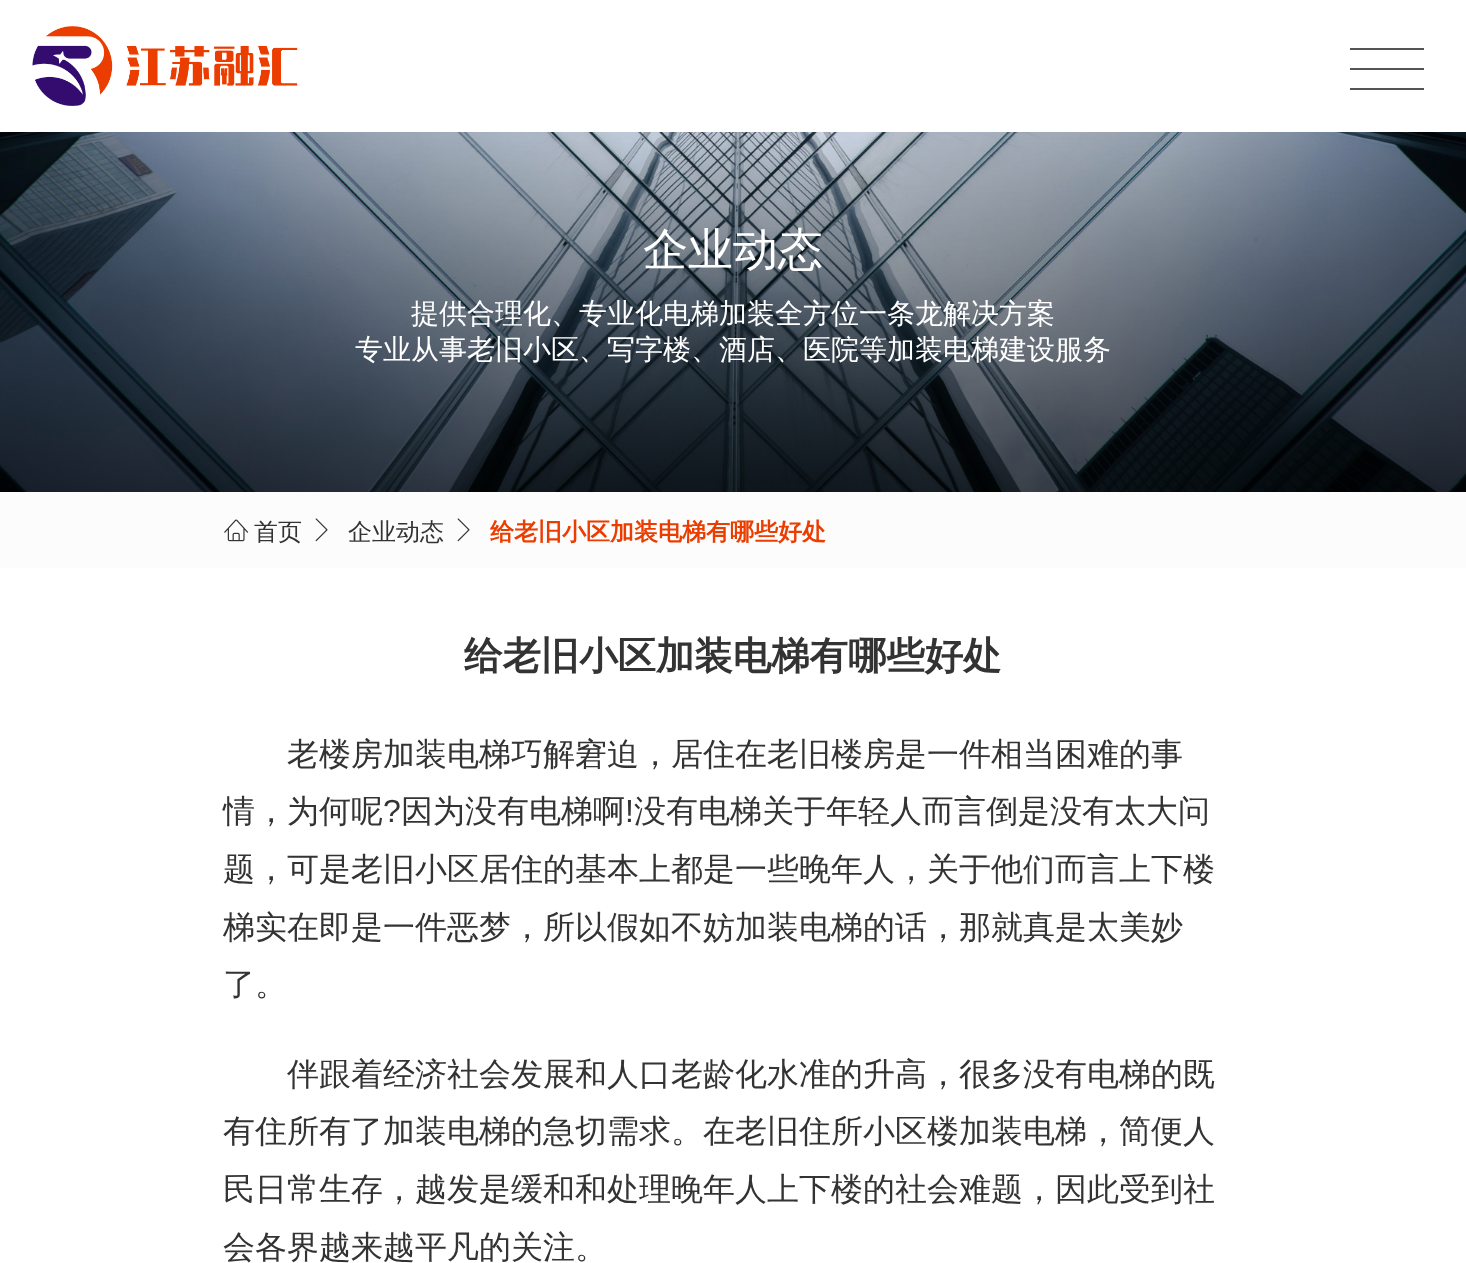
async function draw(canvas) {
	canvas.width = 1466;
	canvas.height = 1263;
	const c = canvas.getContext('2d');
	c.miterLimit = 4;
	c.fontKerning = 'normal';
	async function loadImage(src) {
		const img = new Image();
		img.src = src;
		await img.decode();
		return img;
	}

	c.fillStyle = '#fff';
	c.fillRect(0, 0, 1466, 1263);
	c.drawImage(await loadImage('img1.png'), 32, 26, 266, 80);
	for (const [x, y, w, h, color] of [
		[1350, 48, 74, 2, '#555'],
		[1350, 68, 74, 2, '#555'],
		[1350, 88, 74, 2, '#555'],
	]) {
		c.fillStyle = color;
		c.fillRect(x, y, w, h);
	}
	c.drawImage(await loadImage('img2.png'), 0, 132, 1466, 360);
	c.font = '500 45px WenQuanYi Zen Hei';
	c.fillStyle = '#fff';
	c.fillText('企业动态', 643, 265);
	c.font = '500 28px WenQuanYi Zen Hei';
	c.fillText('提供合理化、专业化电梯加装全方位一条龙解决方案', 411, 323);
	c.fillText('专业从事老旧小区、写字楼、酒店、医院等加装电梯建设服务', 355, 359);
	c.fillStyle = '#fcfcfc';
	c.fillRect(0, 492, 1466, 76);
	c.drawImage(await loadImage('img3.png'), 224, 519, 25, 23);
	c.font = '500 24px WenQuanYi Zen Hei';
	c.fillStyle = '#333';
	c.fillText('首页', 254, 540);
	c.drawImage(await loadImage('img4.png'), 315, 518, 13, 24);
	c.fillText('企业动态', 348, 540);
	c.drawImage(await loadImage('img4.png'), 457, 518, 13, 24);
	c.font = 'bold 24px WenQuanYi Zen Hei';
	c.fillStyle = '#eb3d00';
	c.fillText('给老旧小区加装电梯有哪些好处', 490, 540);
	c.font = 'bold 38.4px WenQuanYi Zen Hei';
	c.fillStyle = '#333';
	c.fillText('给老旧小区加装电梯有哪些好处', 464, 669);
	c.font = '500 32px WenQuanYi Zen Hei';
	c.fillText('老楼房加装电梯巧解窘迫，居住在老旧楼房是一件相当困难的事', 287, 765);
	c.fillText('情，为何呢', 223, 822);
	c.font = '32px Liberation Sans';
	c.fillText('?', 383, 822);
	c.font = '500 32px WenQuanYi Zen Hei';
	c.fillText('因为没有电梯啊', 401, 822);
	c.font = '32px Liberation Sans';
	c.fillText('!', 625, 822);
	c.font = '500 32px WenQuanYi Zen Hei';
	for (const [text, x, y] of [
		['没有电梯关于年轻人而言倒是没有太大问', 634, 822],
		['题，可是老旧小区居住的基本上都是一些晚年人，关于他们而言上下楼', 223, 880],
		['梯实在即是一件恶梦，所以假如不妨加装电梯的话，那就真是太美妙', 223, 938],
		['了。', 223, 995],
		['伴跟着经济社会发展和人口老龄化水准的升高，很多没有电梯的既', 287, 1085],
		['有住所有了加装电梯的急切需求。在老旧住所小区楼加装电梯，简便人', 223, 1142],
		['民日常生存，越发是缓和和处理晚年人上下楼的社会难题，因此受到社', 223, 1200],
		['会各界越来越平凡的关注。', 223, 1258],
	]) {
		c.fillText(text, x, y);
	}
}

draw(document.querySelector('canvas'));
